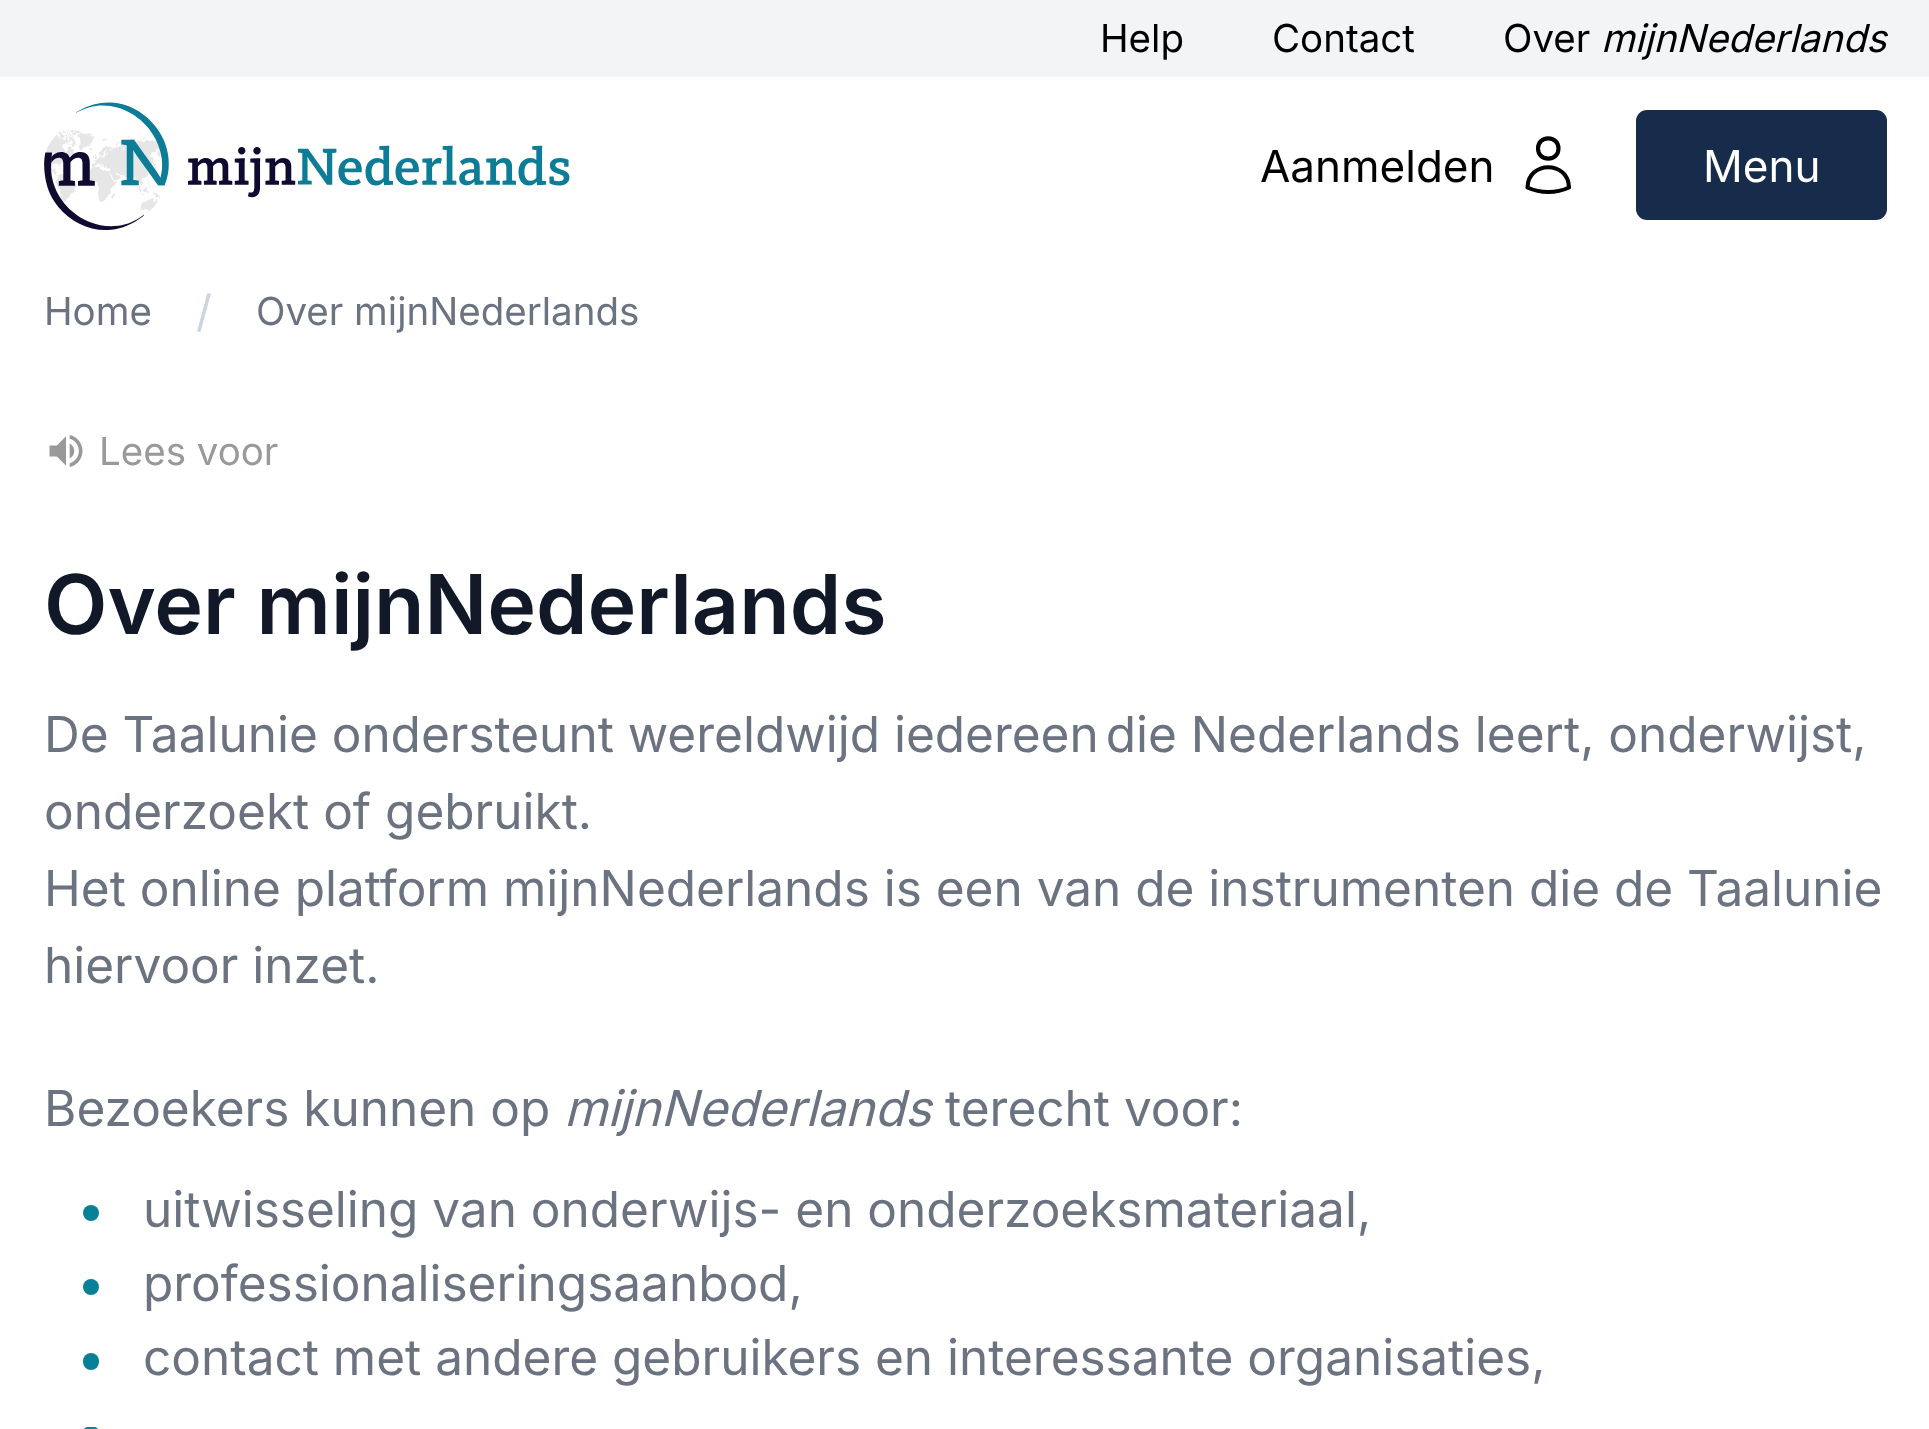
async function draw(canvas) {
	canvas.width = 1929;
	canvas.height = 1429;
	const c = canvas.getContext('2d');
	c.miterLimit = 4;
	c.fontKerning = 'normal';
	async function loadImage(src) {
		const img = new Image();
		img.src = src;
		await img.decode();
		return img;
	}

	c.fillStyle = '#fff';
	c.fillRect(0, 0, 1929, 1429);
	c.fillStyle = '#f3f4f6';
	c.fillRect(0, 0, 1929, 77);
	c.font = '38.5px Inter';
	c.fillStyle = '#000';
	for (const [text, x, y] of [
		['Help', 1100, 52],
		['Contact', 1272, 52],
		['Over', 1503, 52],
	]) {
		c.fillText(text, x, y);
	}
	c.font = 'italic 38.5px Inter';
	c.fillText('mijnNederlands', 1601, 52);
	c.drawImage(await loadImage('img1.png'), 44, 102, 526, 128);
	c.font = '44px Inter';
	c.fillText('Aanmelden', 1260, 182);
	c.beginPath();
	c.moveTo(1558.5, 148.5);
	c.bezierCurveTo(1558.5, 162, 1538, 162, 1538, 148.5);
	c.bezierCurveTo(1538, 135, 1558.5, 135, 1558.5, 148.5);
	c.closePath();
	c.moveTo(1527.5, 187.5);
	c.bezierCurveTo(1528, 160.5, 1568.5, 160.5, 1569, 187.5);
	c.bezierCurveTo(1556, 193.5, 1540.5, 193.5, 1527.5, 187.5);
	c.closePath();
	c.strokeStyle = '#000';
	c.lineWidth = 4.1;
	c.lineCap = 'round';
	c.lineJoin = 'round';
	c.stroke();
	c.fillStyle = '#172c4a';
	c.beginPath();
	c.roundRect(1636, 110, 251, 110, 11);
	c.fill();
	c.fillStyle = '#fff';
	c.fillText('Menu', 1703, 182);
	c.font = '38.5px Inter';
	c.fillStyle = '#6b7280';
	c.fillText('Home', 44, 325);
	c.font = '44px Inter';
	c.fillStyle = '#cbd5e1';
	c.fillText('/', 196, 327);
	c.font = '38.5px Inter';
	c.fillStyle = '#6b7280';
	c.fillText('Over mijnNederlands', 256, 325);
	c.drawImage(await loadImage('img2.png'), 49, 435, 34, 32);
	c.fillStyle = '#999';
	c.fillText('Lees voor', 99, 465);
	c.font = '600 82.5px Inter';
	c.fillStyle = '#111827';
	c.fillText('Over mijnNederlands', 44, 634);
	c.font = '49.5px Inter';
	c.fillStyle = '#6b7280';
	for (const [text, x, y] of [
		['De Taalunie ondersteunt wereldwijd iedereen die Nederlands leert, onderwijst,', 44, 752],
		['onderzoekt of gebruikt.', 44, 829],
		['Het online platform mijnNederlands is een van de instrumenten die de Taalunie', 44, 906],
		['hiervoor inzet.', 44, 983],
		['Bezoekers kunnen op', 44, 1126],
	]) {
		c.fillText(text, x, y);
	}
	c.font = 'italic 49.5px Inter';
	c.fillText('mijnNederlands', 564, 1126);
	c.font = '49.5px Inter';
	c.fillText('terecht voor:', 945, 1126);
	c.fillStyle = '#088096';
	c.beginPath();
	c.arc(91, 1213, 8, 0, 2 * Math.PI);
	c.fill();
	c.fillStyle = '#6b7280';
	c.fillText('uitwisseling van onderwijs- en onderzoeksmateriaal,', 143, 1227);
	c.fillStyle = '#088096';
	c.beginPath();
	c.arc(91, 1287, 8, 0, 2 * Math.PI);
	c.fill();
	c.fillStyle = '#6b7280';
	c.fillText('professionaliseringsaanbod,', 143, 1301);
	c.fillStyle = '#088096';
	c.beginPath();
	c.roundRect(83, 1353, 16, 17, 8);
	c.fill();
	c.fillStyle = '#6b7280';
	c.fillText('contact met andere gebruikers en interessante organisaties,', 143, 1375);
	c.fillStyle = '#088096';
	c.beginPath();
	c.roundRect(83, 1427, 16, 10, 8);
	c.fill();
}

draw(document.querySelector('canvas'));
